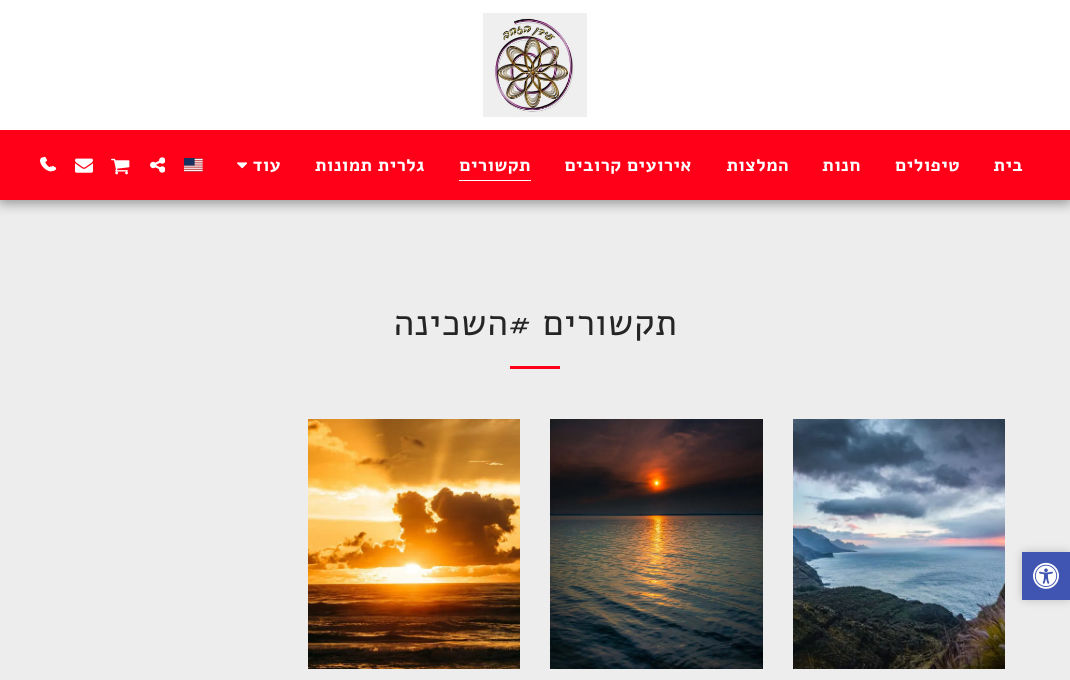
async function draw(canvas) {
	canvas.width = 1070;
	canvas.height = 680;
	const c = canvas.getContext('2d');
	c.miterLimit = 4;
	c.fontKerning = 'normal';
	async function loadImage(src) {
		const img = new Image();
		img.src = src;
		await img.decode();
		return img;
	}

	c.fillStyle = '#ededed';
	c.fillRect(0, 0, 1070, 680);
	c.fillStyle = '#00000059';
	c.filter = 'blur(6px)';
	c.beginPath();
	c.rect(-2, 0, 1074, 204);
	c.fill();
	c.filter = 'none';
	c.fillStyle = '#ff0018';
	c.fillRect(0, 130, 1070, 70);
	c.fillStyle = '#fff';
	c.fillRect(0, 0, 1070, 130);
	c.drawImage(await loadImage('img1.png'), 483, 13, 104, 104);
	c.letterSpacing = '0.5px';
	c.direction = 'rtl';
	c.font = 'bold 18px Alef';
	for (const [text, x, y] of [
		['בית', 1023, 171],
		['טיפולים', 960, 171],
		['חנות', 861, 171],
		['המלצות', 789, 171],
		['אירועים קרובים', 692, 171],
		['תקשורים', 531, 171],
	]) {
		c.fillText(text, x, y);
	}
	c.fillRect(459, 180, 72, 1);
	c.fillText('גלרית תמונות', 425, 171);
	c.fillText('עוד', 281, 171);
	c.drawImage(await loadImage('img2.png'), 237, 162, 10, 7);
	c.drawImage(await loadImage('img3.png'), 184, 158, 19, 14);
	c.drawImage(await loadImage('img4.png'), 150, 157, 15, 16);
	c.drawImage(await loadImage('img5.png'), 111, 158, 19, 17);
	c.drawImage(await loadImage('img6.png'), 75, 158, 18, 15);
	c.drawImage(await loadImage('img7.png'), 40, 157, 14, 15);
	c.drawImage(await loadImage('img8.png'), 43, 156, 14, 15);
	c.font = '37px Alef';
	c.fillStyle = '#252525';
	c.fillText('תקשורים #השכינה', 677, 335);
	c.fillStyle = '#ff0018';
	c.fillRect(510, 366, 50, 3);
	c.drawImage(await loadImage('img9.png'), 793, 419, 212, 250);
	c.drawImage(await loadImage('img10.png'), 550, 419, 213, 250);
	c.drawImage(await loadImage('img11.png'), 308, 419, 212, 250);
	c.fillStyle = '#00000033';
	c.filter = 'blur(5px)';
	c.beginPath();
	c.rect(1022, 552, 48, 48);
	c.fill();
	c.filter = 'none';
	c.fillStyle = '#4054b2';
	c.fillRect(1022, 552, 48, 48);
	c.drawImage(await loadImage('img12.png'), 1033, 562, 26, 27);
}

draw(document.querySelector('canvas'));
